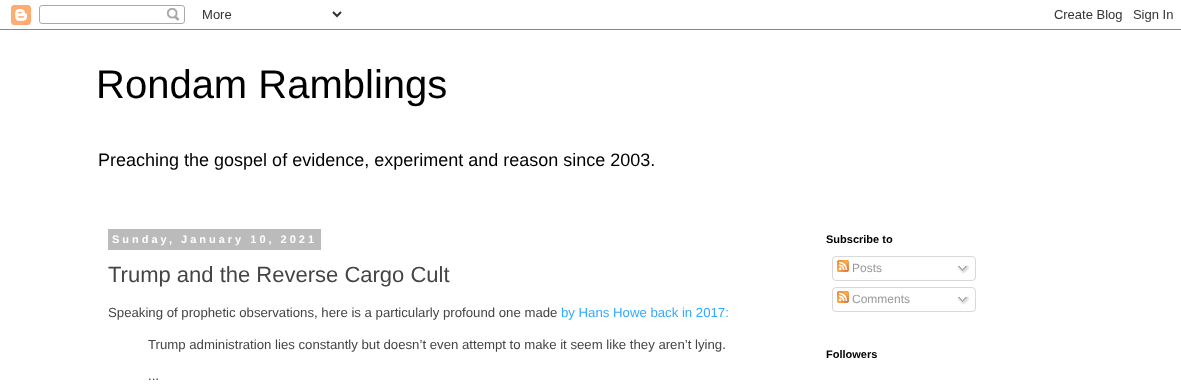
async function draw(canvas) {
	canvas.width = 1181;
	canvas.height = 386;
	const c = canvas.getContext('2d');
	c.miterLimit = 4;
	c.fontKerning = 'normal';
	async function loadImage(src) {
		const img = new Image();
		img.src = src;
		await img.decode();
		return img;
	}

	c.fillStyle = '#fff';
	c.fillRect(0, 0, 1181, 386);
	c.drawImage(await loadImage('img1.png'), 0, 5, 1181, 25);
	c.font = '40px Liberation Sans';
	c.fillStyle = '#000';
	c.fillText('Rondam Ramblings', 96, 98);
	c.font = '18px Liberation Sans';
	c.fillText('Preaching the gospel of evidence, experiment and reason since 2003.', 98, 166);
	c.fillStyle = '#bbb';
	c.fillRect(108, 229, 213, 21);
	c.letterSpacing = '3px';
	c.font = 'bold 11px Liberation Sans';
	c.fillStyle = '#fff';
	c.fillText('Sunday, January 10, 2021', 112, 243);
	c.letterSpacing = '0px';
	c.font = '22px Liberation Sans';
	c.fillStyle = '#444';
	c.fillText('Trump and the Reverse Cargo Cult', 108, 282);
	c.font = '13.2px Liberation Sans';
	c.fillText('Speaking of prophetic observations, here is a particularly profound one made', 108, 317);
	c.fillStyle = '#3af';
	c.fillText('by Hans Howe back in 2017:', 561, 317);
	c.fillStyle = '#444';
	c.fillText('Trump administration lies constantly but doesn’t even attempt to make it seem like they aren’t lying.', 148, 349);
	c.fillText('...', 148, 380);
	c.font = 'bold 11px Liberation Sans';
	c.fillStyle = '#000';
	c.fillText('Subscribe to', 826, 243);
	c.drawImage(await loadImage('img2.png'), 832, 256, 144, 22);
	c.drawImage(await loadImage('img3.png'), 837, 260, 12, 12);
	c.font = '12px Liberation Sans';
	c.fillStyle = '#999';
	c.fillText('Posts', 852, 272);
	c.drawImage(await loadImage('img4.png'), 957, 265, 13, 9);
	c.drawImage(await loadImage('img5.png'), 832, 278, 144, 3);
	c.drawImage(await loadImage('img2.png'), 832, 287, 144, 22);
	c.drawImage(await loadImage('img3.png'), 837, 291, 12, 12);
	c.fillText('Comments', 852, 303);
	c.drawImage(await loadImage('img4.png'), 957, 296, 13, 9);
	c.drawImage(await loadImage('img5.png'), 832, 309, 144, 3);
	c.font = 'bold 11px Liberation Sans';
	c.fillStyle = '#000';
	c.fillText('Followers', 826, 358);
}

draw(document.querySelector('canvas'));
